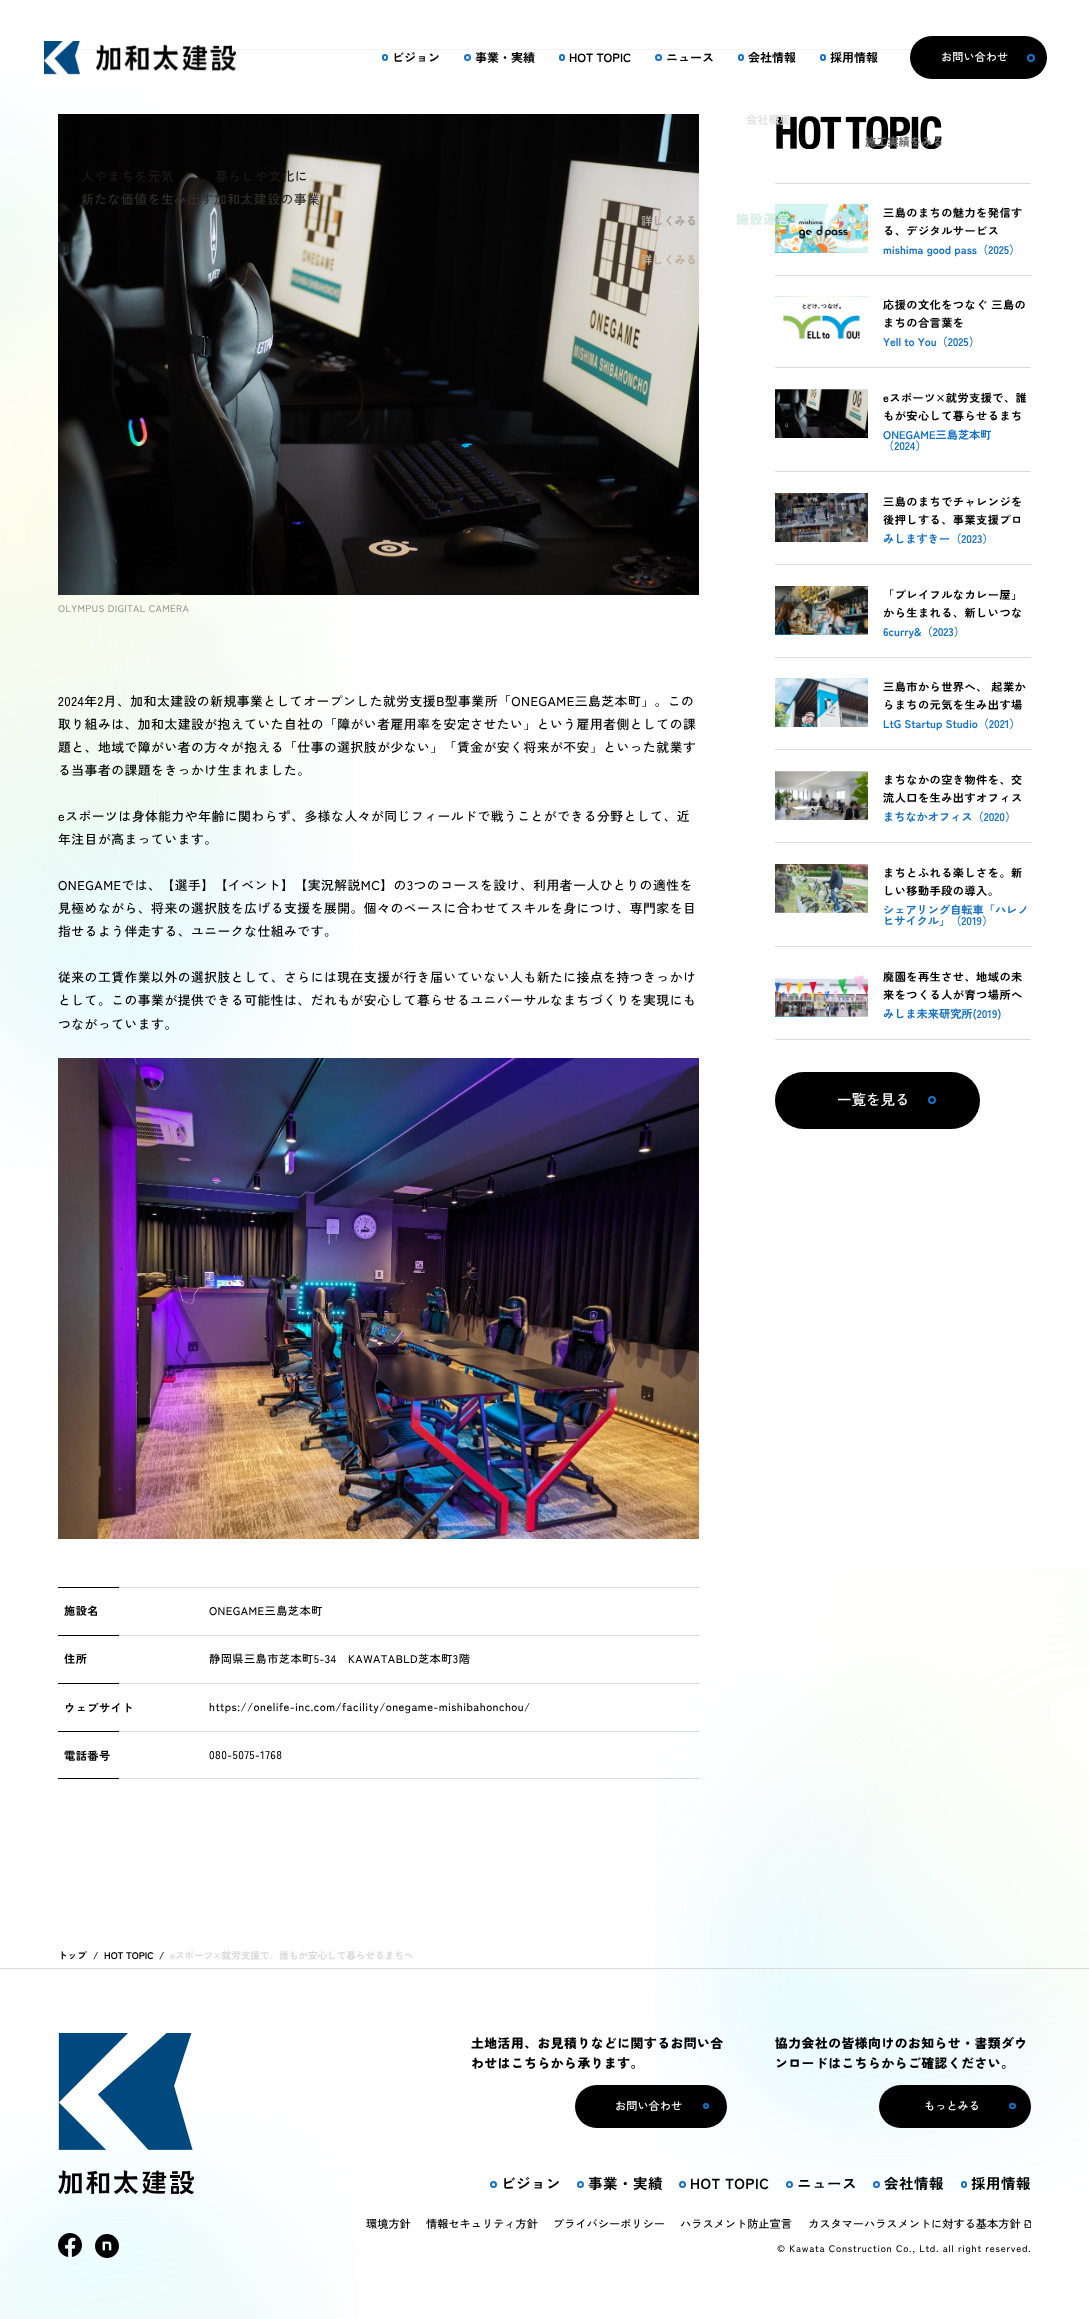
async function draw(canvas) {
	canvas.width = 1089;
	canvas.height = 2319;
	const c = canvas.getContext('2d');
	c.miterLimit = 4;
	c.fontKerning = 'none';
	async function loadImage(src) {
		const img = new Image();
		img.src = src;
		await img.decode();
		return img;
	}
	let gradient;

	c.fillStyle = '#fff';
	c.fillRect(0, 0, 1089, 2319);
	c.fillStyle = '#000';
	c.fillRect(58, 49, 854, 1);
	c.drawImage(await loadImage('img2.png'), 0, 76, 354, 1090);
	c.fillStyle = '#fffffff2';
	c.beginPath();
	c.roundRect(32, 30, 1025, 56, 3);
	c.fill();
	c.drawImage(await loadImage('img1.png'), 44, 41, 192, 34);
	c.beginPath();
	c.arc(467.5, 57.5, 2.5, 0, 2 * Math.PI);
	c.strokeStyle = '#1672c7';
	c.lineWidth = 2;
	c.stroke();
	c.font = 'bold 12px Zen Kaku Gothic New';
	c.fillStyle = '#000';
	c.fillText('事業・実績', 475, 62);
	c.drawImage(await loadImage('img5.png'), 58, 114, 641, 481);
	c.letterSpacing = '0.5px';
	c.font = '500 12.8px Zen Kaku Gothic New';
	c.fillStyle = '#1b1a19';
	c.fillText('人やまちを元気', 81, 181);
	c.fillText('暮らしや文化に', 215, 181);
	c.fillStyle = '#2f2e2c';
	c.fillText('新たな価値を生み出す加和太建設の事業', 81, 204);
	c.drawImage(await loadImage('img7.png'), 776, 116, 166, 33);
	c.letterSpacing = '0px';
	c.font = 'bold 11.2px Zen Kaku Gothic New';
	c.fillStyle = '#6c6c6c';
	c.fillText('施工実績をみる', 865, 146);
	c.fillStyle = '#a5a09a';
	c.fillText('詳しくみる', 641, 225);
	gradient = c.createLinearGradient(793, 266, 850, 191);
	gradient.addColorStop(0, '#0098ff');
	gradient.addColorStop(0.64, '#fff9c6');
	gradient.addColorStop(0.7, '#fff');
	gradient.addColorStop(0.76, '#fff9c6');
	gradient.addColorStop(1, '#9fe8ff');
	c.fillStyle = gradient;
	c.fillRect(775, 252, 93, 1);
	c.drawImage(await loadImage('img8.png'), 775, 204, 93, 49);
	c.letterSpacing = '1px';
	c.font = '900 12.8px Zen Kaku Gothic New';
	c.fillStyle = '#d7efe7';
	c.fillText('施設運営', 736, 224);
	c.letterSpacing = '0px';
	c.font = 'bold 11.2px Zen Kaku Gothic New';
	c.fillStyle = '#bfaf9d';
	c.fillText('詳しくみる', 641, 264);
	c.beginPath();
	c.roundRect(383, 55, 4, 5, 2);
	c.stroke();
	c.font = 'bold 12px Zen Kaku Gothic New';
	c.fillStyle = '#000';
	c.fillText('ビジョン', 392, 62);
	c.beginPath();
	c.roundRect(560, 55, 4, 5, 2);
	c.stroke();
	c.fillText('HOT TOPIC', 569, 62);
	c.beginPath();
	c.arc(658.5, 57.5, 2.5, 0, 2 * Math.PI);
	c.stroke();
	c.fillText('ニュース', 666, 62);
	c.beginPath();
	c.roundRect(739, 55, 4, 5, 2);
	c.stroke();
	c.fillText('会社情報', 748, 62);
	c.font = 'bold 11.2px Zen Kaku Gothic New';
	c.fillStyle = '#e2e2e2';
	c.fillText('会社概要︎', 746, 124);
	c.beginPath();
	c.roundRect(821, 55, 4, 5, 2);
	c.stroke();
	c.font = 'bold 12px Zen Kaku Gothic New';
	c.fillStyle = '#000';
	c.fillText('採用情報', 830, 62);
	c.beginPath();
	c.roundRect(910, 36, 137, 43, 21.5);
	c.fill();
	c.font = '500 11.2px Zen Kaku Gothic New';
	c.fillStyle = '#fff';
	c.fillText('お問い合わせ', 941, 61);
	c.beginPath();
	c.arc(1031, 58, 3, 0, 2 * Math.PI);
	c.stroke();
	c.drawImage(await loadImage('img3.png'), 654, 1570, 435, 622);
	c.drawImage(await loadImage('img4.png'), 0, 2116, 358, 203);
	c.letterSpacing = '0.4px';
	c.font = '500 9.6px Zen Kaku Gothic New';
	c.fillStyle = '#999';
	c.fillText('OLYMPUS DIGITAL CAMERA', 58, 612);
	c.letterSpacing = '0.5px';
	c.font = '500 12.8px Zen Kaku Gothic New';
	c.fillStyle = '#000';
	for (const [text, x, y] of [
		['2024年2月、加和太建設の新規事業としてオープンした就労支援B型事業所「ONEGAME三島芝本町」。この', 58, 706],
		['取り組みは、加和太建設が抱えていた自社の「障がい者雇用率を安定させたい」という雇用者側としての課', 58, 729],
		['題と、地域で障がい者の方々が抱える「仕事の選択肢が少ない」「賃金が安く将来が不安」といった就業す', 58, 752],
		['る当事者の課題をきっかけ生まれました。', 58, 775],
		['eスポーツは身体能力や年齢に関わらず、多様な人々が同じフィールドで戦うことができる分野として、近', 58, 821],
		['年注目が高まっています。', 58, 844],
		['ONEGAMEでは、【選手】【イベント】【実況解説MC】の3つのコースを設け、利用者一人ひとりの適性を', 58, 890],
		['見極めながら、将来の選択肢を広げる支援を展開。個々のペースに合わせてスキルを身につけ、専門家を目', 58, 913],
		['指せるよう伴走する、ユニークな仕組みです。', 58, 936],
		['従来の工賃作業以外の選択肢として、さらには現在支援が行き届いていない人も新たに接点を持つきっかけ', 58, 982],
		['として。この事業が提供できる可能性は、だれもが安心して暮らせるユニバーサルなまちづくりを実現にも', 58, 1005],
		['つながっています。', 58, 1029],
	]) {
		c.fillText(text, x, y);
	}
	c.drawImage(await loadImage('img6.png'), 58, 1058, 641, 481);
	c.fillRect(58, 1587, 61, 1);
	c.fillStyle = '#d9d9d9';
	c.fillRect(119, 1587, 580, 1);
	c.letterSpacing = '0.45px';
	c.font = 'bold 11.2px Zen Kaku Gothic New';
	c.fillStyle = '#000';
	c.fillText('施設名', 64, 1615);
	c.font = '500 11.2px Zen Kaku Gothic New';
	c.fillText('ONEGAME三島芝本町', 209, 1615);
	c.fillRect(58, 1635, 61, 1);
	c.fillStyle = '#d9d9d9';
	c.fillRect(119, 1635, 580, 1);
	c.font = 'bold 11.2px Zen Kaku Gothic New';
	c.fillStyle = '#000';
	c.fillText('住所', 64, 1663);
	c.font = '500 11.2px Zen Kaku Gothic New';
	c.fillText('静岡県三島市芝本町5-34　KAWATABLD芝本町3階', 209, 1663);
	c.fillRect(58, 1683, 61, 1);
	c.fillStyle = '#d9d9d9';
	c.fillRect(119, 1683, 580, 1);
	c.font = 'bold 11.2px Zen Kaku Gothic New';
	c.fillStyle = '#000';
	c.fillText('ウェブサイト', 64, 1712);
	c.font = '500 11.2px Zen Kaku Gothic New';
	c.fillText('https://onelife-inc.com/facility/onegame-mishibahonchou/', 209, 1711);
	c.fillRect(58, 1731, 61, 1);
	c.fillStyle = '#d9d9d9';
	c.fillRect(119, 1731, 580, 1);
	c.font = 'bold 11.2px Zen Kaku Gothic New';
	c.fillStyle = '#000';
	c.fillText('電話番号', 64, 1760);
	c.font = '500 11.2px Zen Kaku Gothic New';
	c.fillText('080-5075-1768', 209, 1759);
	for (const [x, y, w, h, color] of [
		[58, 1778, 61, 1, '#000'],
		[119, 1778, 580, 1, '#d9d9d9'],
		[775, 183, 256, 1, '#d9d9d9'],
	]) {
		c.fillStyle = color;
		c.fillRect(x, y, w, h);
	}
	c.font = 'bold 11.2px Zen Kaku Gothic New';
	c.fillStyle = '#000';
	c.fillText('三島のまちの魅力を発信す', 883, 217);
	c.fillText('る、デジタルサービス', 883, 235);
	c.letterSpacing = '0px';
	c.fillStyle = '#1672c7';
	c.fillText('mishima good pass（2025）', 883, 254);
	c.fillStyle = '#d9d9d9';
	c.fillRect(775, 275, 256, 1);
	gradient = c.createLinearGradient(793, 358, 850, 283);
	gradient.addColorStop(0, '#0098ff');
	gradient.addColorStop(0.64, '#fff9c6');
	gradient.addColorStop(0.7, '#fff');
	gradient.addColorStop(0.76, '#fff9c6');
	gradient.addColorStop(1, '#9fe8ff');
	c.fillStyle = gradient;
	c.fillRect(775, 296, 93, 1);
	c.drawImage(await loadImage('img9.png'), 775, 296, 93, 49);
	c.letterSpacing = '0.45px';
	c.fillStyle = '#000';
	c.fillText('応援の文化をつなぐ 三島の', 883, 309);
	c.fillText('まちの合言葉を', 883, 327);
	c.letterSpacing = '0px';
	c.fillStyle = '#1672c7';
	c.fillText('Yell to You（2025）', 883, 346);
	c.fillStyle = '#d9d9d9';
	c.fillRect(775, 367, 256, 1);
	c.drawImage(await loadImage('img10.png'), 775, 389, 93, 49);
	c.letterSpacing = '0.45px';
	c.fillStyle = '#000';
	c.fillText('eスポーツ×就労支援で、誰', 883, 402);
	c.fillText('もが安心して暮らせるまち', 883, 420);
	c.letterSpacing = '0px';
	c.fillStyle = '#1672c7';
	c.fillText('ONEGAME三島芝本町', 883, 439);
	c.fillText('（2024）', 883, 450);
	c.fillStyle = '#d9d9d9';
	c.fillRect(775, 471, 256, 1);
	c.drawImage(await loadImage('img11.png'), 775, 493, 93, 49);
	c.letterSpacing = '0.45px';
	c.fillStyle = '#000';
	c.fillText('三島のまちでチャレンジを', 883, 506);
	c.fillText('後押しする、事業支援プロ', 883, 524);
	c.letterSpacing = '0px';
	c.fillStyle = '#1672c7';
	c.fillText('みしますきー（2023）', 883, 543);
	c.fillStyle = '#d9d9d9';
	c.fillRect(775, 564, 256, 1);
	gradient = c.createLinearGradient(793, 648, 850, 573);
	gradient.addColorStop(0, '#0098ff');
	gradient.addColorStop(0.64, '#fff9c6');
	gradient.addColorStop(0.7, '#fff');
	gradient.addColorStop(0.76, '#fff9c6');
	gradient.addColorStop(1, '#9fe8ff');
	c.fillStyle = gradient;
	c.fillRect(775, 634, 93, 1);
	c.drawImage(await loadImage('img12.png'), 775, 586, 93, 49);
	c.letterSpacing = '0.45px';
	c.fillStyle = '#000';
	c.fillText('「プレイフルなカレー屋」', 883, 599);
	c.fillText('から生まれる、新しいつな', 883, 617);
	c.letterSpacing = '0px';
	c.fillStyle = '#1672c7';
	c.fillText('6curry&（2023）', 883, 636);
	c.fillStyle = '#d9d9d9';
	c.fillRect(775, 657, 256, 1);
	gradient = c.createLinearGradient(793, 740, 850, 665);
	gradient.addColorStop(0, '#0098ff');
	gradient.addColorStop(0.64, '#fff9c6');
	gradient.addColorStop(0.7, '#fff');
	gradient.addColorStop(0.76, '#fff9c6');
	gradient.addColorStop(1, '#9fe8ff');
	c.fillStyle = gradient;
	c.fillRect(775, 678, 93, 1);
	c.drawImage(await loadImage('img13.png'), 775, 678, 93, 49);
	c.letterSpacing = '0.45px';
	c.fillStyle = '#000';
	c.fillText('三島市から世界へ、 起業か', 883, 691);
	c.fillText('らまちの元気を生み出す場', 883, 709);
	c.letterSpacing = '0px';
	c.fillStyle = '#1672c7';
	c.fillText('LtG Startup Studio（2021）', 883, 728);
	c.fillStyle = '#d9d9d9';
	c.fillRect(775, 749, 256, 1);
	c.drawImage(await loadImage('img14.png'), 775, 771, 93, 49);
	c.letterSpacing = '0.45px';
	c.fillStyle = '#000';
	c.fillText('まちなかの空き物件を、交', 883, 784);
	c.fillText('流人口を生み出すオフィス', 883, 802);
	c.letterSpacing = '0px';
	c.fillStyle = '#1672c7';
	c.fillText('まちなかオフィス（2020）', 883, 821);
	c.fillStyle = '#d9d9d9';
	c.fillRect(775, 842, 256, 1);
	c.drawImage(await loadImage('img15.png'), 775, 864, 93, 49);
	c.letterSpacing = '0.45px';
	c.fillStyle = '#000';
	c.fillText('まちとふれる楽しさを。新', 883, 877);
	c.fillText('しい移動手段の導入。', 883, 895);
	c.letterSpacing = '0px';
	c.fillStyle = '#1672c7';
	c.fillText('シェアリング自転車「ハレノ', 883, 914);
	c.fillText('ヒサイクル」（2019）', 883, 925);
	c.fillStyle = '#d9d9d9';
	c.fillRect(775, 946, 256, 1);
	gradient = c.createLinearGradient(793, 1030, 850, 955);
	gradient.addColorStop(0, '#0098ff');
	gradient.addColorStop(0.64, '#fff9c6');
	gradient.addColorStop(0.7, '#fff');
	gradient.addColorStop(0.76, '#fff9c6');
	gradient.addColorStop(1, '#9fe8ff');
	c.fillStyle = gradient;
	c.fillRect(775, 1016, 93, 1);
	c.drawImage(await loadImage('img16.png'), 775, 968, 93, 49);
	c.letterSpacing = '0.45px';
	c.fillStyle = '#000';
	c.fillText('廃園を再生させ、地域の未', 883, 981);
	c.fillText('来をつくる人が育つ場所へ', 883, 999);
	c.letterSpacing = '0px';
	c.fillStyle = '#1672c7';
	c.fillText('みしま未来研究所(2019)', 883, 1018);
	c.fillStyle = '#d9d9d9';
	c.fillRect(775, 1039, 256, 1);
	c.fillStyle = '#000';
	c.beginPath();
	c.roundRect(775, 1072, 205, 57, 28.5);
	c.fill();
	c.font = '500 14.5px Zen Kaku Gothic New';
	c.fillStyle = '#fff';
	c.fillText('一覧を見る', 837, 1105);
	c.beginPath();
	c.arc(932, 1100, 3, 0, 2 * Math.PI);
	c.stroke();
	c.font = 'bold 9.6px Zen Kaku Gothic New';
	c.fillStyle = '#000';
	for (const [text, x, y] of [
		['トップ', 58, 1959],
		['/', 93, 1959],
		['HOT TOPIC', 104, 1959],
		['/', 159, 1959],
	]) {
		c.fillText(text, x, y);
	}
	c.fillStyle = '#d9d9d9';
	c.fillText('eスポーツ×就労支援で、誰もが安心して暮らせるまちへ', 170, 1959);
	c.fillRect(0, 1968, 1089, 1);
	c.drawImage(await loadImage('img17.png'), 58, 2033, 136, 162);
	c.drawImage(await loadImage('img18.png'), 58, 2233, 24, 24);
	c.drawImage(await loadImage('img19.png'), 95, 2234, 24, 24);
	c.letterSpacing = '0.5px';
	c.font = '900 12.8px Zen Kaku Gothic New';
	c.fillStyle = '#000';
	c.fillText('土地活用、お見積りなどに関するお問い合', 471, 2048);
	c.fillText('わせはこちらから承ります。', 471, 2068);
	c.beginPath();
	c.roundRect(575, 2085, 152, 43, 21.5);
	c.fill();
	c.letterSpacing = '0px';
	c.font = '500 11.2px Zen Kaku Gothic New';
	c.fillStyle = '#fff';
	c.fillText('お問い合わせ', 615, 2110);
	c.beginPath();
	c.arc(706, 2106, 2, 0, 2 * Math.PI);
	c.stroke();
	c.letterSpacing = '0.5px';
	c.font = '900 12.8px Zen Kaku Gothic New';
	c.fillStyle = '#000';
	c.fillText('協力会社の皆様向けのお知らせ・書類ダウ', 775, 2048);
	c.fillText('ンロードはこちらからご確認ください。', 775, 2068);
	c.beginPath();
	c.roundRect(879, 2085, 152, 43, 21.5);
	c.fill();
	c.letterSpacing = '0px';
	c.font = '500 11.2px Zen Kaku Gothic New';
	c.fillStyle = '#fff';
	c.fillText('もっとみる', 924, 2110);
	c.beginPath();
	c.roundRect(1010, 2104, 5, 4, 2);
	c.stroke();
	c.beginPath();
	c.arc(493.5, 2184.5, 2.5, 0, 2 * Math.PI);
	c.stroke();
	c.letterSpacing = '0.5px';
	c.font = 'bold 14.5px Zen Kaku Gothic New';
	c.fillStyle = '#000';
	c.fillText('ビジョン', 501, 2189);
	c.beginPath();
	c.arc(580.5, 2184.5, 2.5, 0, 2 * Math.PI);
	c.stroke();
	c.fillText('事業・実績', 588, 2189);
	c.beginPath();
	c.arc(682.5, 2184.5, 2.5, 0, 2 * Math.PI);
	c.stroke();
	c.fillText('HOT TOPIC', 690, 2189);
	c.beginPath();
	c.arc(789.5, 2184.5, 2.5, 0, 2 * Math.PI);
	c.stroke();
	c.fillText('ニュース', 797, 2189);
	c.beginPath();
	c.arc(876.5, 2184.5, 2.5, 0, 2 * Math.PI);
	c.stroke();
	c.fillText('会社情報', 884, 2189);
	c.beginPath();
	c.roundRect(962, 2182, 4, 5, 2);
	c.stroke();
	c.fillText('採用情報', 971, 2189);
	c.letterSpacing = '0px';
	c.font = '500 11.2px Zen Kaku Gothic New';
	for (const [text, x, y] of [
		['環境方針', 366, 2228],
		['情報セキュリティ方針', 426, 2228],
		['プライバシーポリシー', 553, 2228],
		['ハラスメント防止宣言', 680, 2228],
		['カスタマーハラスメントに対する基本方針', 808, 2228],
	]) {
		c.fillText(text, x, y);
	}
	c.drawImage(await loadImage('img20.png'), 1024, 2220, 7, 8);
	c.letterSpacing = '0.77px';
	c.font = '500 9.6px Zen Kaku Gothic New';
	c.fillText('© Kawata Construction Co., Ltd. all right reserved.', 777, 2252);
}

draw(document.querySelector('canvas'));
